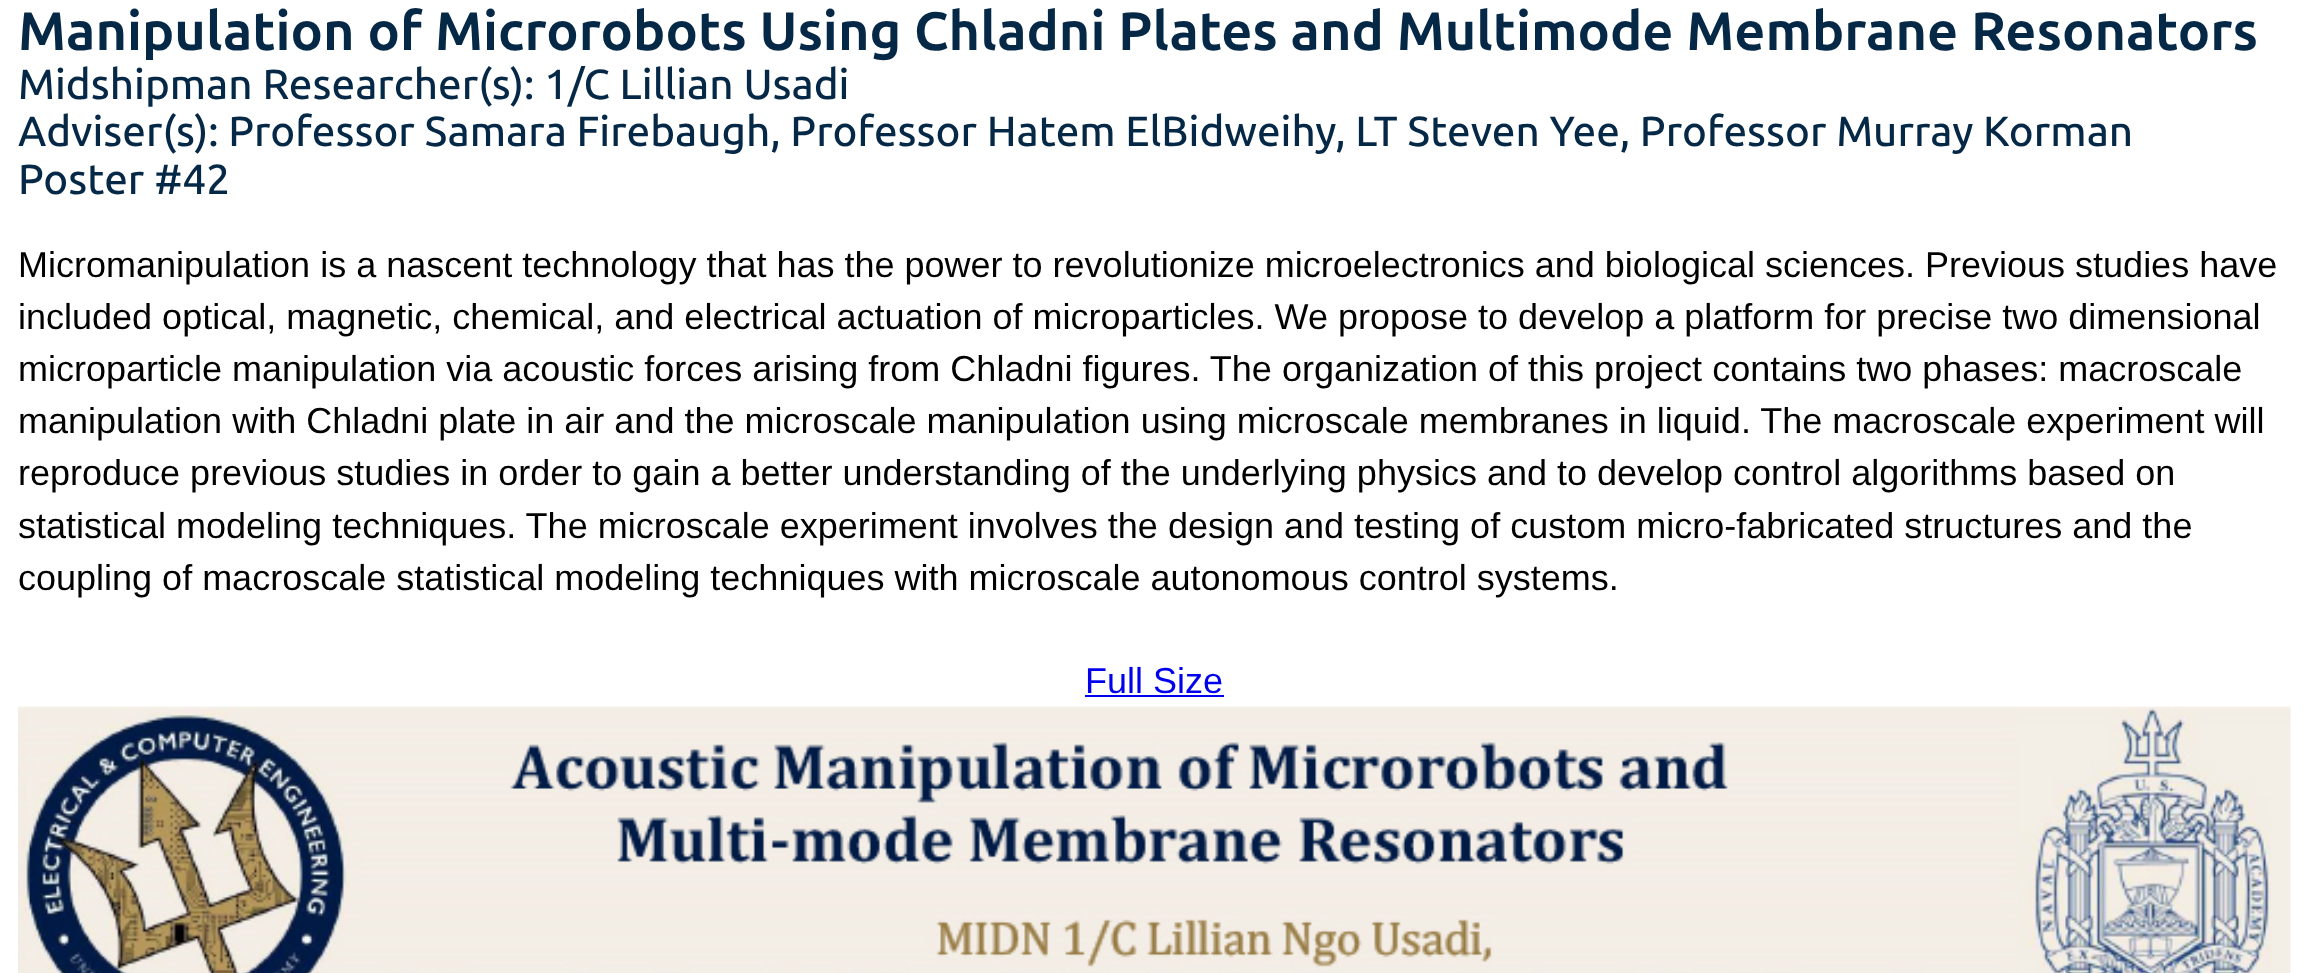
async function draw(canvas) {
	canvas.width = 2308;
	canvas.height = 973;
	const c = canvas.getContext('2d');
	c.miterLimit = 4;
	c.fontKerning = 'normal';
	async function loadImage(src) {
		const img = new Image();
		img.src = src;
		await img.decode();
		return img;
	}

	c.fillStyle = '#fff';
	c.fillRect(0, 0, 2308, 973);
	c.font = 'bold 54px Ubuntu';
	c.fillStyle = '#052847';
	c.fillText('Manipulation of Microrobots Using Chladni Plates and Multimode Membrane Resonators', 18, 50);
	c.font = '500 42.12px Ubuntu';
	c.fillText('Midshipman Researcher(s): 1/C Lillian Usadi', 18, 99);
	c.wordSpacing = '-0.2px';
	c.fillText('Adviser(s): Professor Samara Firebaugh, Professor Hatem ElBidweihy, LT Steven Yee, Professor Murray Korman', 18, 146);
	c.wordSpacing = '0px';
	c.fillText('Poster #42', 18, 194);
	c.font = '36px Liberation Sans';
	c.fillStyle = '#000';
	for (const [text, x, y] of [
		['Micromanipulation is a nascent technology that has the power to revolutionize microelectronics and biological sciences. Previous studies have', 18, 277],
		['included optical, magnetic, chemical, and electrical actuation of microparticles. We propose to develop a platform for precise two dimensional', 18, 329],
		['microparticle manipulation via acoustic forces arising from Chladni figures. The organization of this project contains two phases: macroscale', 18, 381],
		['manipulation with Chladni plate in air and the microscale manipulation using microscale membranes in liquid. The macroscale experiment will', 18, 433],
		['reproduce previous studies in order to gain a better understanding of the underlying physics and to develop control algorithms based on', 18, 485],
		['statistical modeling techniques. The microscale experiment involves the design and testing of custom micro-fabricated structures and the', 18, 538],
		['coupling of macroscale statistical modeling techniques with microscale autonomous control systems.', 18, 590],
	]) {
		c.fillText(text, x, y);
	}
	c.fillStyle = '#00e';
	c.fillText('Full Size', 1085, 693);
	c.fillRect(1085, 695, 139, 2);
	c.drawImage(await loadImage('img1.png'), 18, 706, 2273, 267);
}

draw(document.querySelector('canvas'));
